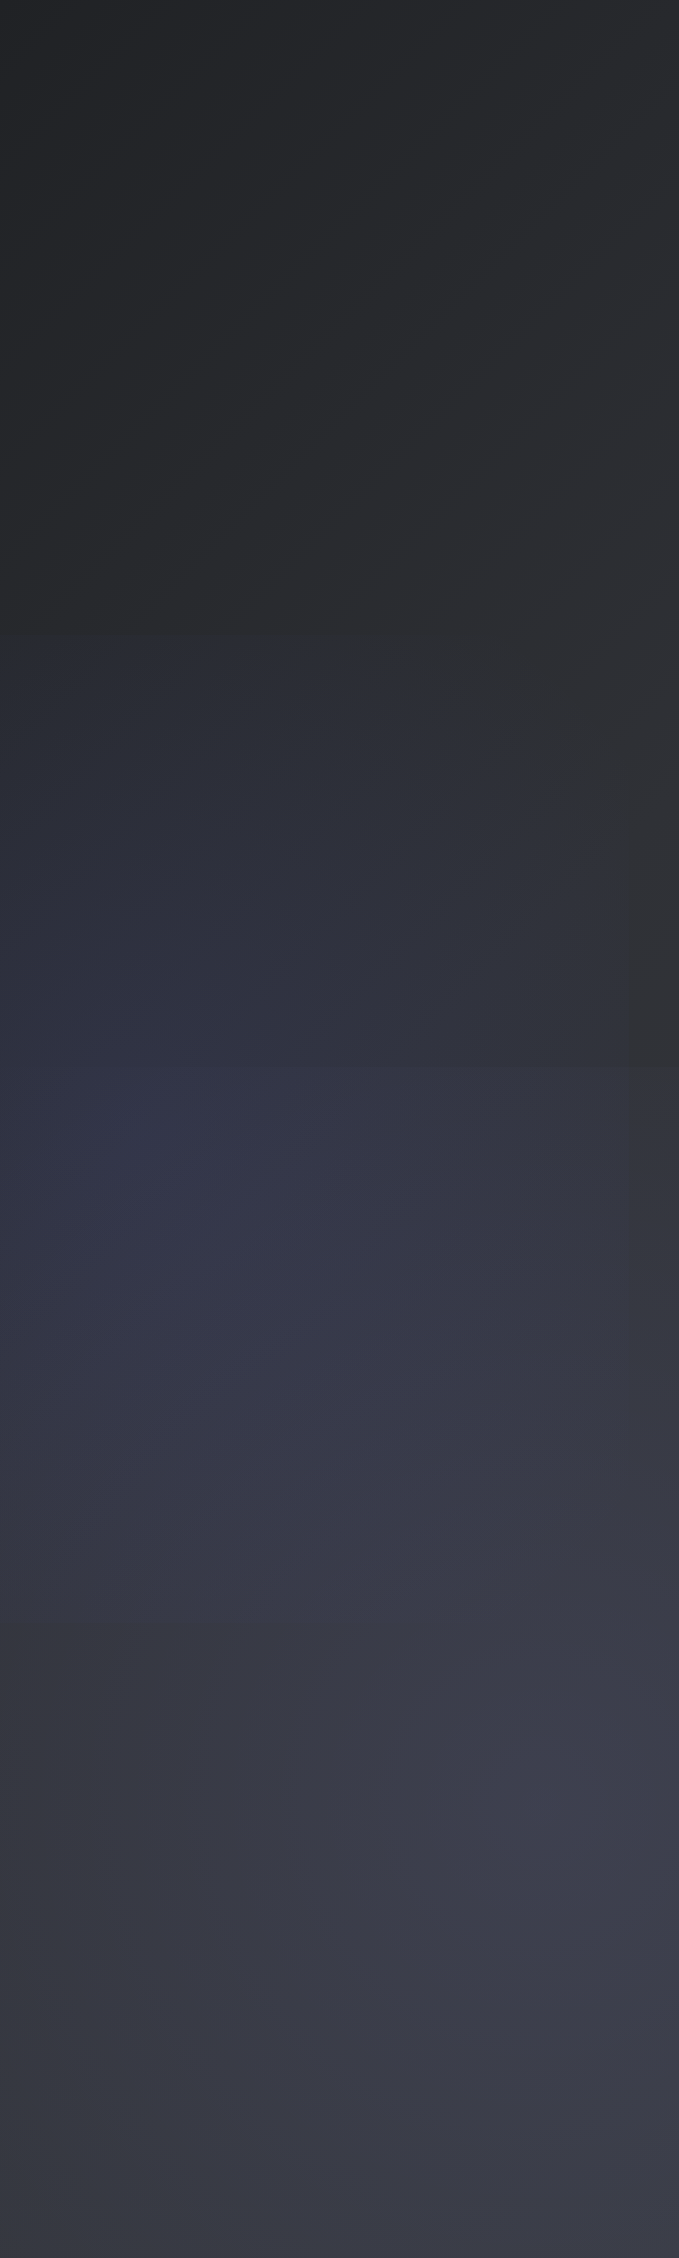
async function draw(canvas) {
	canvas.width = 679;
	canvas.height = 2258;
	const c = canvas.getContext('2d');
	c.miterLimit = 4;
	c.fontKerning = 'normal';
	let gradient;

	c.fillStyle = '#fff';
	c.fillRect(0, 0, 679, 2258);
	gradient = c.createLinearGradient(-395, 395, 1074, 1863);
	gradient.addColorStop(0, '#202225');
	gradient.addColorStop(0.5, '#2f3136');
	gradient.addColorStop(1, '#36393f');
	c.fillStyle = gradient;
	c.fillRect(0, 0, 679, 2258);
	gradient = c.createRadialGradient(543, 1806, 0, 543, 1806, 1886);
	gradient.addColorStop(0, '#9b9bff1a');
	gradient.addColorStop(0.5, '#9b9bff00');
	c.fillStyle = gradient;
	c.fillRect(0, 1067, 679, 1191);
	gradient = c.createRadialGradient(136, 1129, 0, 136, 1129, 1253);
	gradient.addColorStop(0, '#5865f21a');
	gradient.addColorStop(0.5, '#5865f200');
	c.fillStyle = gradient;
	c.fillRect(0, 635, 629, 988);
}

draw(document.querySelector('canvas'));
